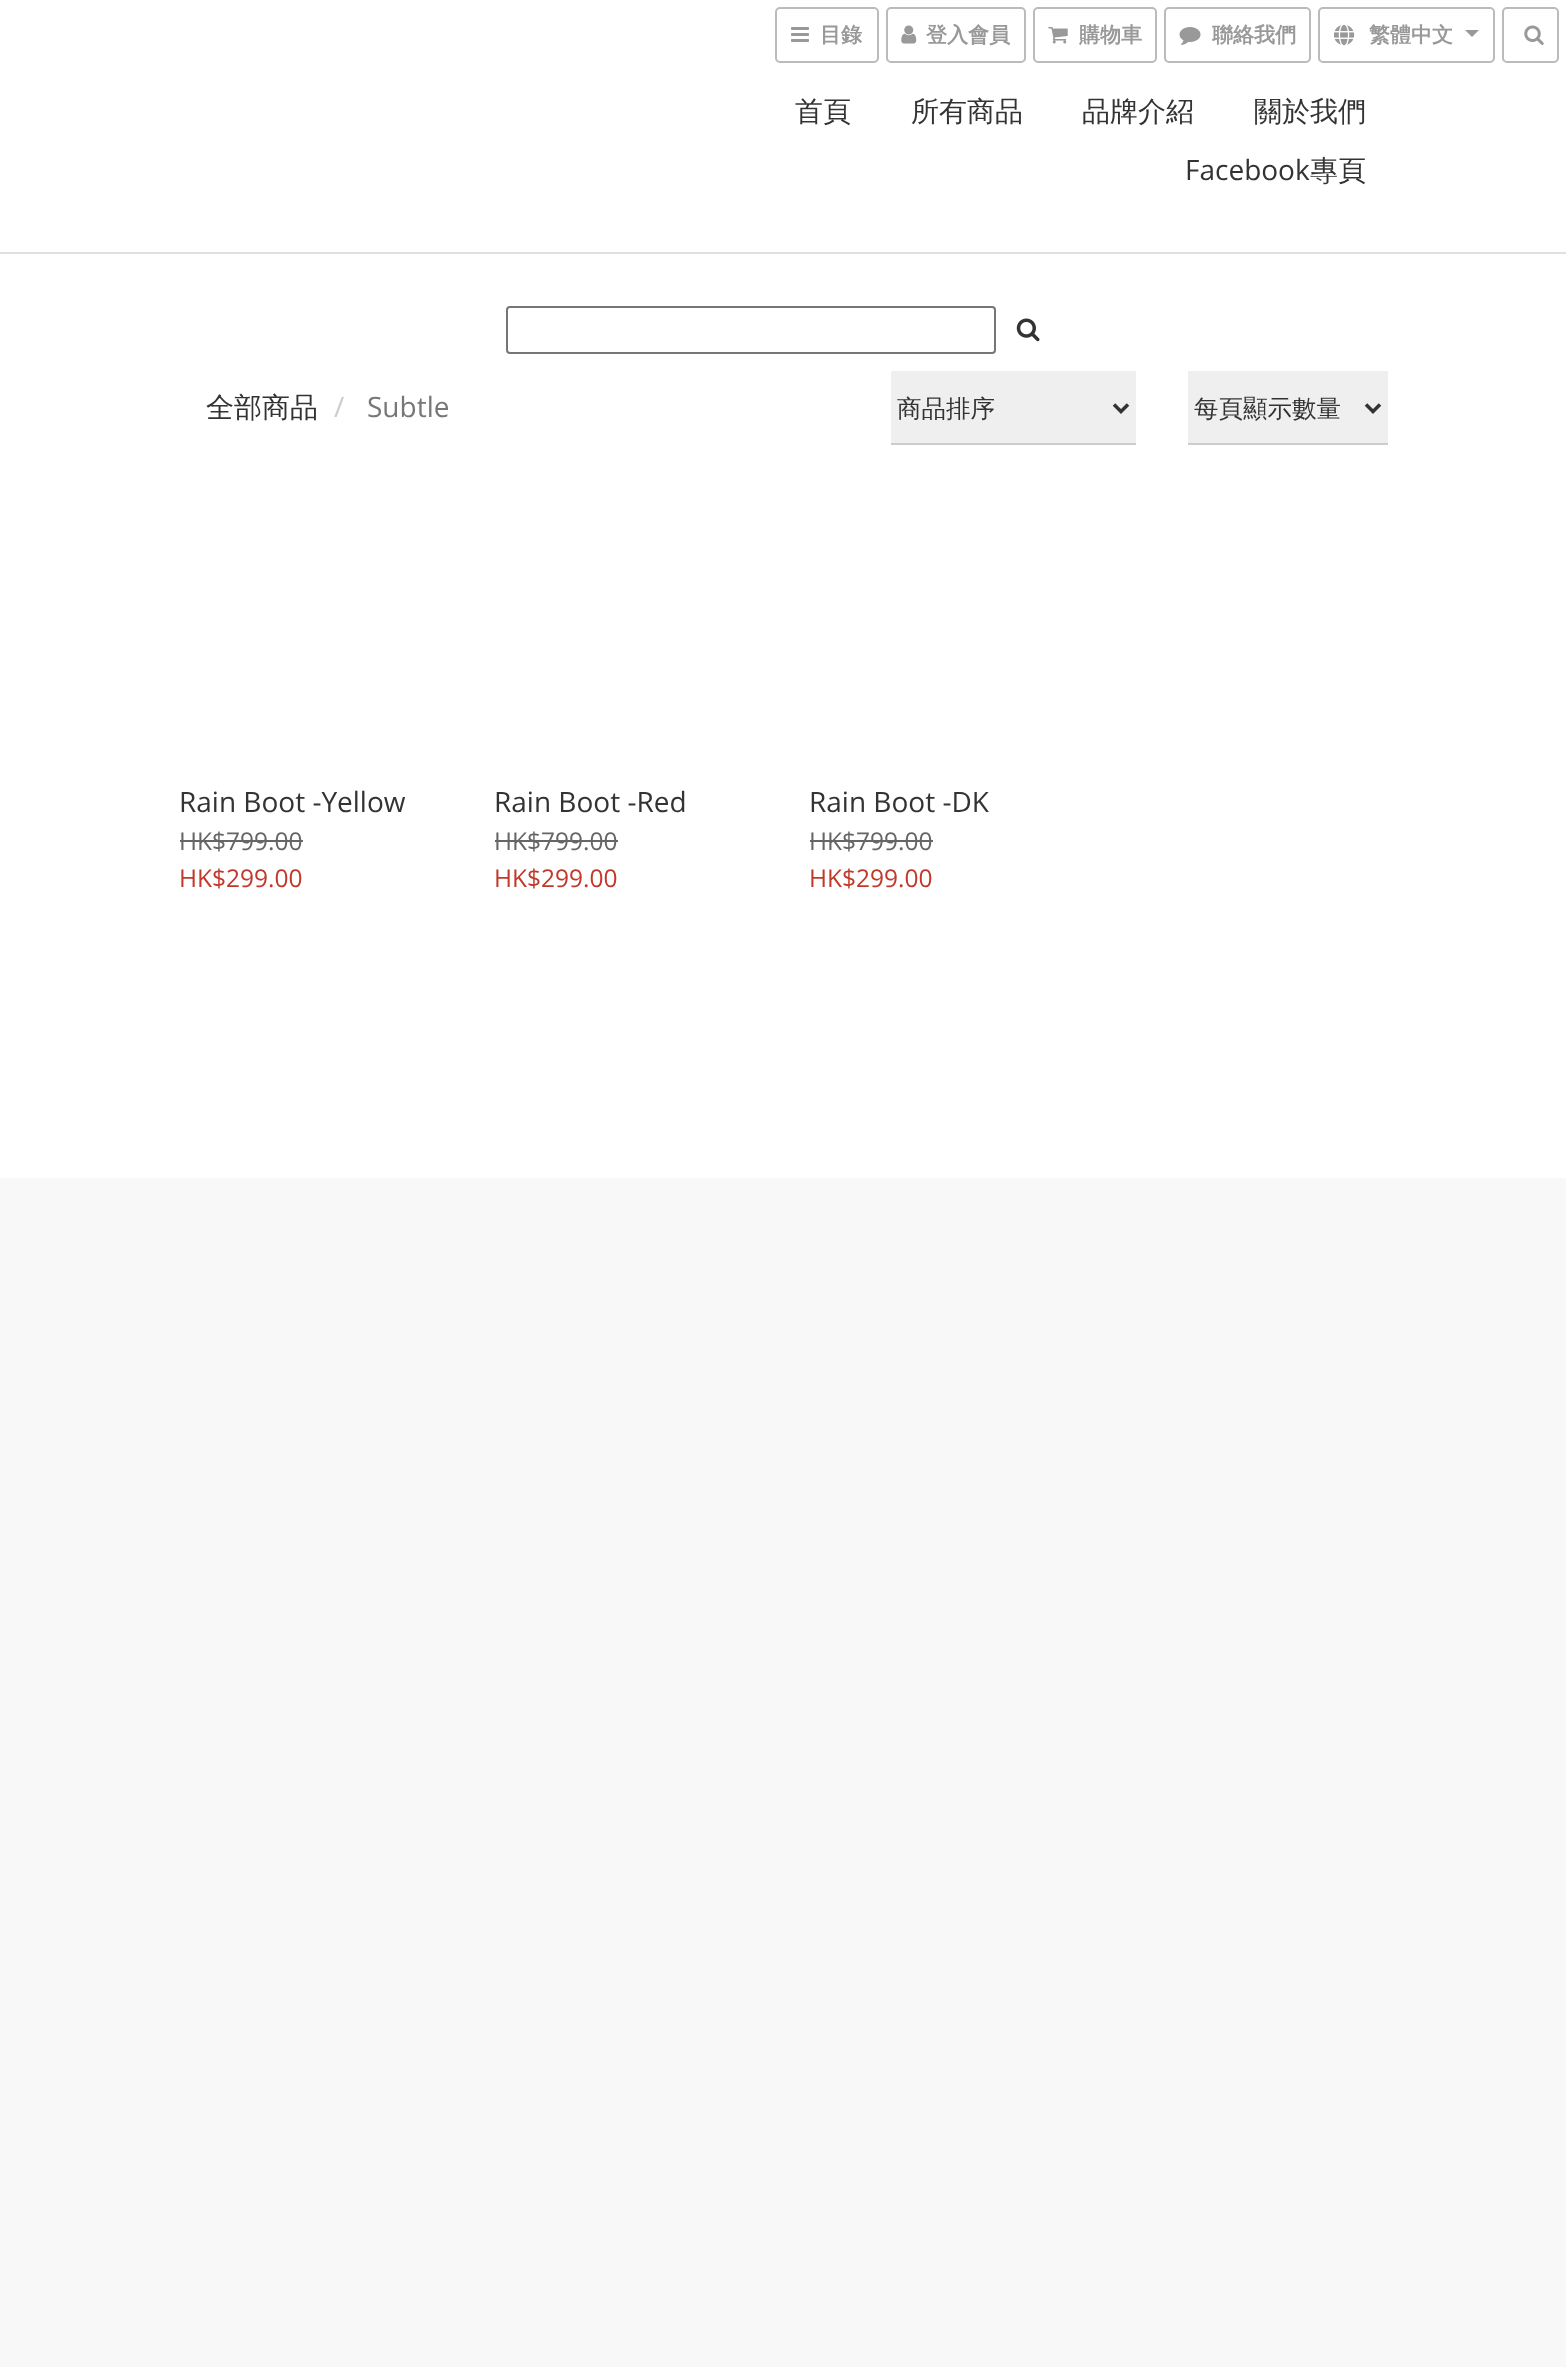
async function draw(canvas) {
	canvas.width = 1566;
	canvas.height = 2367;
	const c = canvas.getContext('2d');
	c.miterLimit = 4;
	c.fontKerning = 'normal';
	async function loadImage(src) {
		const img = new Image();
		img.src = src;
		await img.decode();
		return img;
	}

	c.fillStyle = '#fff';
	c.fillRect(0, 0, 1566, 2367);
	c.beginPath();
	c.roundRect(776, 8, 102, 54, 4);
	c.strokeStyle = '#bbb';
	c.lineWidth = 2;
	c.stroke();
	c.drawImage(await loadImage('img1.png'), 791, 27, 18, 15);
	c.font = 'bold 21px WenQuanYi Zen Hei';
	c.fillStyle = '#999';
	c.fillText('目錄', 820, 42);
	c.beginPath();
	c.roundRect(887, 8, 138, 54, 4);
	c.stroke();
	c.drawImage(await loadImage('img2.png'), 901, 25, 16, 19);
	c.fillText('登入會員', 926, 42);
	c.beginPath();
	c.roundRect(1034, 8, 122, 54, 4);
	c.stroke();
	c.drawImage(await loadImage('img3.png'), 1048, 27, 20, 17);
	c.fillText('購物車', 1079, 42);
	c.beginPath();
	c.roundRect(1165, 8, 145, 54, 4);
	c.stroke();
	c.drawImage(await loadImage('img4.png'), 1179, 27, 22, 18);
	c.fillText('聯絡我們', 1212, 42);
	c.beginPath();
	c.roundRect(1319, 8, 175, 54, 4);
	c.stroke();
	c.drawImage(await loadImage('img5.png'), 1334, 25, 21, 21);
	c.fillText('繁體中文', 1369, 42);
	c.beginPath();
	c.moveTo(1465, 30);
	c.lineTo(1479, 30);
	c.lineTo(1472, 37);
	c.closePath();
	c.fill();
	c.beginPath();
	c.roundRect(1503, 8, 55, 54, 4);
	c.stroke();
	c.drawImage(await loadImage('img6.png'), 1524, 25, 20, 20);
	c.fillStyle = '#e0e0e0';
	c.fillRect(0, 252, 1566, 2);
	c.font = '500 28px WenQuanYi Zen Hei';
	c.fillStyle = '#333';
	for (const [text, x, y] of [
		['首頁', 795, 121],
		['所有商品', 911, 121],
		['品牌介紹', 1082, 121],
		['關於我們', 1254, 121],
	]) {
		c.fillText(text, x, y);
	}
	c.font = '28px Open Sans';
	c.fillText('Facebook', 1185, 180);
	c.font = '500 28px WenQuanYi Zen Hei';
	c.fillText('專頁', 1310, 180);
	c.beginPath();
	c.roundRect(507, 307, 488, 46, 3);
	c.strokeStyle = '#767676';
	c.stroke();
	c.drawImage(await loadImage('img7.png'), 1016, 318, 24, 24);
	c.fillText('全部商品', 206, 417);
	c.font = '28px Open Sans';
	c.fillStyle = '#ccc';
	c.fillText('/', 334, 417);
	c.fillStyle = '#777';
	c.fillText('Subtle', 367, 417);
	c.fillStyle = '#efefef';
	c.fillRect(891, 371, 245, 72);
	c.fillStyle = '#ccc';
	c.fillRect(891, 443, 245, 2);
	c.beginPath();
	c.moveTo(1114, 404.5);
	c.lineTo(1121, 411.5);
	c.lineTo(1128, 404.5);
	c.strokeStyle = '#333';
	c.lineWidth = 3.5;
	c.stroke();
	c.font = '500 24.5px WenQuanYi Zen Hei';
	c.fillStyle = '#333';
	c.fillText('商品排序', 897, 417);
	c.fillStyle = '#efefef';
	c.fillRect(1188, 371, 200, 72);
	c.fillStyle = '#ccc';
	c.fillRect(1188, 443, 200, 2);
	c.beginPath();
	c.moveTo(1366, 404.5);
	c.lineTo(1373, 411.5);
	c.lineTo(1380, 404.5);
	c.stroke();
	c.fillStyle = '#333';
	c.fillText('每頁顯示數量', 1194, 417);
	c.font = '28px Open Sans';
	c.fillText('Rain Boot -Yellow', 179, 812);
	c.font = '24.5px Open Sans';
	c.fillStyle = '#666';
	c.fillText('HK$799.00', 179, 850);
	c.fillRect(180, 840, 123, 2);
	c.fillStyle = '#c0392b';
	c.fillText('HK$299.00', 179, 887);
	c.font = '28px Open Sans';
	c.fillStyle = '#333';
	c.fillText('Rain Boot -Red', 494, 812);
	c.font = '24.5px Open Sans';
	c.fillStyle = '#666';
	c.fillText('HK$799.00', 494, 850);
	c.fillRect(495, 840, 123, 2);
	c.fillStyle = '#c0392b';
	c.fillText('HK$299.00', 494, 887);
	c.font = '28px Open Sans';
	c.fillStyle = '#333';
	c.fillText('Rain Boot -DK', 809, 812);
	c.font = '24.5px Open Sans';
	c.fillStyle = '#666';
	c.fillText('HK$799.00', 809, 850);
	c.fillRect(810, 840, 123, 2);
	c.fillStyle = '#c0392b';
	c.fillText('HK$299.00', 809, 887);
	c.fillStyle = '#f8f8f8';
	c.fillRect(0, 1178, 1566, 1189);
}

draw(document.querySelector('canvas'));
